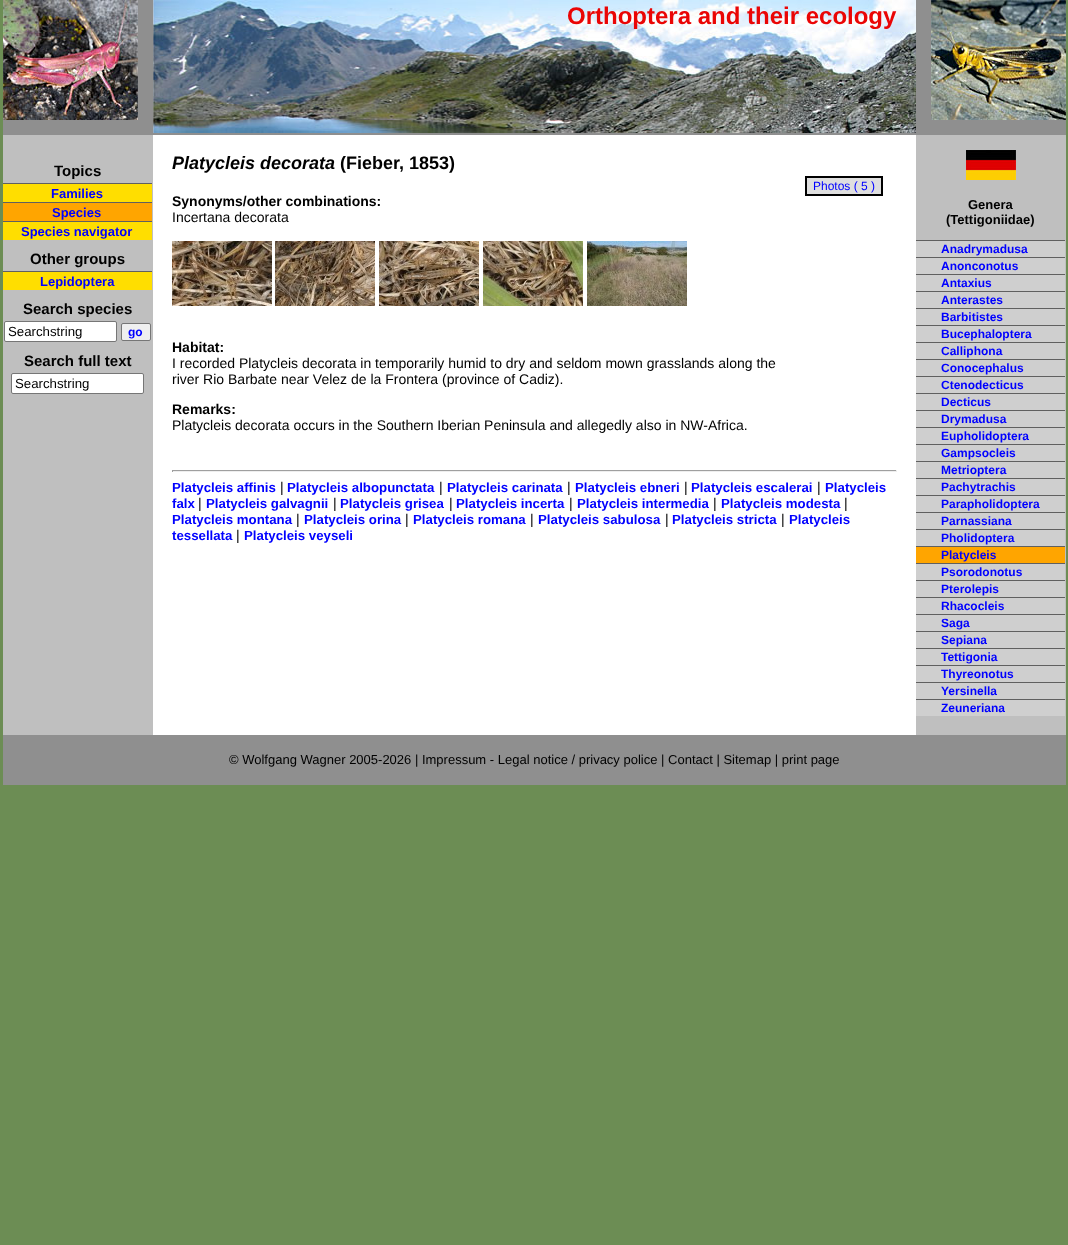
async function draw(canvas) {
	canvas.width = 1068;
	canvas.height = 1245;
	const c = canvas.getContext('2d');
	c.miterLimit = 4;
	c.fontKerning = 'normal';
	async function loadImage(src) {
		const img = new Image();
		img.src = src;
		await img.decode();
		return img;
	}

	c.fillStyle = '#6c8d54';
	c.fillRect(0, 0, 1068, 1245);
	c.fillStyle = '#8f8f8f';
	c.fillRect(153, 133, 763, 2);
	c.drawImage(await loadImage('img1.png'), 153, 0, 763, 133);
	c.fillRect(3, 0, 150, 135);
	c.drawImage(await loadImage('img2.png'), 3, 0, 135, 120);
	c.font = 'bold 24px Liberation Sans';
	c.fillStyle = '#ea0505';
	c.fillText('Orthoptera and their ecology', 567, 24);
	c.fillStyle = '#8f8f8f';
	c.fillRect(916, 0, 150, 135);
	c.drawImage(await loadImage('img3.png'), 931, 0, 135, 120);
	c.drawImage(await loadImage('img4.png'), 3, 135, 1063, 600);
	c.font = 'bold 15px Liberation Sans';
	c.fillStyle = '#000';
	c.fillText('Topics', 54, 176);
	c.fillStyle = '#ffde00';
	c.fillRect(3, 184, 149, 18);
	c.fillStyle = '#606060';
	c.fillRect(3, 183, 149, 1);
	c.font = 'bold 13px Liberation Sans';
	c.fillStyle = '#00f';
	c.fillText('Families', 51, 198);
	c.fillStyle = '#ffa500';
	c.fillRect(3, 203, 149, 18);
	c.fillStyle = '#606060';
	c.fillRect(3, 202, 149, 1);
	c.fillStyle = '#00f';
	c.fillText('Species', 52, 217);
	c.fillStyle = '#ffde00';
	c.fillRect(3, 222, 149, 18);
	c.fillStyle = '#606060';
	c.fillRect(3, 221, 149, 1);
	c.fillStyle = '#00f';
	c.fillText('Species navigator', 21, 236);
	c.font = 'bold 15px Liberation Sans';
	c.fillStyle = '#000';
	c.fillText('Other groups', 30, 264);
	c.fillStyle = '#ffde00';
	c.fillRect(3, 272, 149, 18);
	c.fillStyle = '#606060';
	c.fillRect(3, 271, 149, 1);
	c.font = 'bold 13px Liberation Sans';
	c.fillStyle = '#00f';
	c.fillText('Lepidoptera', 40, 286);
	c.font = 'bold 15px Liberation Sans';
	c.fillStyle = '#000';
	c.fillText('Search species', 23, 314);
	c.fillStyle = '#fff';
	c.beginPath();
	c.roundRect(4.5, 321.5, 112, 20, 1.5);
	c.fill();
	c.strokeStyle = '#767676';
	c.stroke();
	c.font = '13.25px Liberation Sans';
	c.fillStyle = '#000';
	c.fillText('Searchstring', 8, 336);
	c.fillStyle = '#efefef';
	c.beginPath();
	c.roundRect(121.5, 323.5, 29, 17, 1.5);
	c.fill();
	c.stroke();
	c.font = 'bold 12px Liberation Sans';
	c.fillStyle = '#00f';
	c.fillText('go', 128, 336);
	c.font = 'bold 15px Liberation Sans';
	c.fillStyle = '#000';
	c.fillText('Search full text', 24, 366);
	c.fillStyle = '#fff';
	c.beginPath();
	c.roundRect(11.5, 373.5, 132, 20, 1.5);
	c.fill();
	c.stroke();
	c.font = '13.25px Liberation Sans';
	c.fillStyle = '#000';
	c.fillText('Searchstring', 15, 388);
	c.font = 'italic bold 18px Liberation Sans';
	c.fillText('Platycleis decorata', 172, 169);
	c.font = 'bold 18px Liberation Sans';
	c.fillText('(Fieber, 1853)', 340, 169);
	c.fillStyle = '#dfdfdf';
	c.beginPath();
	c.rect(806, 177, 76, 18);
	c.fill();
	c.strokeStyle = '#000';
	c.lineWidth = 2;
	c.stroke();
	c.font = '12px Liberation Sans';
	c.fillStyle = '#00f';
	c.fillText('Photos ( 5 )', 813, 190);
	c.font = 'bold 14px Liberation Sans';
	c.fillStyle = '#000';
	c.fillText('Synonyms/other combinations:', 172, 206);
	c.font = '14px Liberation Sans';
	c.fillText('Incertana decorata', 172, 222);
	c.drawImage(await loadImage('img5.png'), 172, 241, 100, 65);
	c.drawImage(await loadImage('img6.png'), 275, 241, 100, 65);
	c.drawImage(await loadImage('img7.png'), 379, 241, 100, 65);
	c.drawImage(await loadImage('img8.png'), 483, 241, 100, 65);
	c.drawImage(await loadImage('img9.png'), 587, 241, 100, 65);
	c.font = 'bold 14px Liberation Sans';
	c.fillText('Habitat:', 172, 352);
	c.font = '14px Liberation Sans';
	c.fillText('I recorded Platycleis decorata in temporarily humid to dry and seldom mown grasslands along the', 172, 368);
	c.fillText('river Rio Barbate near Velez de la Frontera (province of Cadiz).', 172, 384);
	c.font = 'bold 14px Liberation Sans';
	c.fillText('Remarks:', 172, 414);
	c.font = '14px Liberation Sans';
	c.fillText('Platycleis decorata occurs in the Southern Iberian Peninsula and allegedly also in NW-Africa.', 172, 430);
	for (const [x, y, w, h, color] of [
		[172, 470, 725, 1, '#9f9f9f'],
		[896, 470, 1, 2, '#eee'],
		[172, 471, 725, 1, '#eee'],
		[172, 470, 1, 2, '#9f9f9f'],
	]) {
		c.fillStyle = color;
		c.fillRect(x, y, w, h);
	}
	c.font = 'bold 13.25px Liberation Sans';
	c.fillStyle = '#00f';
	c.fillText('Platycleis affinis', 172, 492);
	c.font = '14px Liberation Sans';
	c.fillStyle = '#000';
	c.fillText('|', 280, 492);
	c.font = 'bold 13.25px Liberation Sans';
	c.fillStyle = '#00f';
	c.fillText('Platycleis albopunctata', 287, 492);
	c.font = '14px Liberation Sans';
	c.fillStyle = '#000';
	c.fillText('|', 439, 492);
	c.font = 'bold 13.25px Liberation Sans';
	c.fillStyle = '#00f';
	c.fillText('Platycleis carinata', 447, 492);
	c.font = '14px Liberation Sans';
	c.fillStyle = '#000';
	c.fillText('|', 567, 492);
	c.font = 'bold 13.25px Liberation Sans';
	c.fillStyle = '#00f';
	c.fillText('Platycleis ebneri', 575, 492);
	c.font = '14px Liberation Sans';
	c.fillStyle = '#000';
	c.fillText('|', 684, 492);
	c.font = 'bold 13.25px Liberation Sans';
	c.fillStyle = '#00f';
	c.fillText('Platycleis escalerai', 691, 492);
	c.font = '14px Liberation Sans';
	c.fillStyle = '#000';
	c.fillText('|', 817, 492);
	c.font = 'bold 13.25px Liberation Sans';
	c.fillStyle = '#00f';
	c.fillText('Platycleis', 825, 492);
	c.fillText('falx', 172, 508);
	c.font = '14px Liberation Sans';
	c.fillStyle = '#000';
	c.fillText('|', 198, 508);
	c.font = 'bold 13.25px Liberation Sans';
	c.fillStyle = '#00f';
	c.fillText('Platycleis galvagnii', 206, 508);
	c.font = '14px Liberation Sans';
	c.fillStyle = '#000';
	c.fillText('|', 333, 508);
	c.font = 'bold 13.25px Liberation Sans';
	c.fillStyle = '#00f';
	c.fillText('Platycleis grisea', 340, 508);
	c.font = '14px Liberation Sans';
	c.fillStyle = '#000';
	c.fillText('|', 449, 508);
	c.font = 'bold 13.25px Liberation Sans';
	c.fillStyle = '#00f';
	c.fillText('Platycleis incerta', 456, 508);
	c.font = '14px Liberation Sans';
	c.fillStyle = '#000';
	c.fillText('|', 569, 508);
	c.font = 'bold 13.25px Liberation Sans';
	c.fillStyle = '#00f';
	c.fillText('Platycleis intermedia', 577, 508);
	c.font = '14px Liberation Sans';
	c.fillStyle = '#000';
	c.fillText('|', 713, 508);
	c.font = 'bold 13.25px Liberation Sans';
	c.fillStyle = '#00f';
	c.fillText('Platycleis modesta', 721, 508);
	c.font = '14px Liberation Sans';
	c.fillStyle = '#000';
	c.fillText('|', 844, 508);
	c.font = 'bold 13.25px Liberation Sans';
	c.fillStyle = '#00f';
	c.fillText('Platycleis montana', 172, 524);
	c.font = '14px Liberation Sans';
	c.fillStyle = '#000';
	c.fillText('|', 296, 524);
	c.font = 'bold 13.25px Liberation Sans';
	c.fillStyle = '#00f';
	c.fillText('Platycleis orina', 304, 524);
	c.font = '14px Liberation Sans';
	c.fillStyle = '#000';
	c.fillText('|', 405, 524);
	c.font = 'bold 13.25px Liberation Sans';
	c.fillStyle = '#00f';
	c.fillText('Platycleis romana', 413, 524);
	c.font = '14px Liberation Sans';
	c.fillStyle = '#000';
	c.fillText('|', 530, 524);
	c.font = 'bold 13.25px Liberation Sans';
	c.fillStyle = '#00f';
	c.fillText('Platycleis sabulosa', 538, 524);
	c.font = '14px Liberation Sans';
	c.fillStyle = '#000';
	c.fillText('|', 665, 524);
	c.font = 'bold 13.25px Liberation Sans';
	c.fillStyle = '#00f';
	c.fillText('Platycleis stricta', 672, 524);
	c.font = '14px Liberation Sans';
	c.fillStyle = '#000';
	c.fillText('|', 781, 524);
	c.font = 'bold 13.25px Liberation Sans';
	c.fillStyle = '#00f';
	c.fillText('Platycleis', 789, 524);
	c.fillText('tessellata', 172, 540);
	c.font = '14px Liberation Sans';
	c.fillStyle = '#000';
	c.fillText('|', 236, 540);
	c.font = 'bold 13.25px Liberation Sans';
	c.fillStyle = '#00f';
	c.fillText('Platycleis veyseli', 244, 540);
	c.drawImage(await loadImage('img10.png'), 966, 150, 50, 30);
	c.font = 'bold 13px Liberation Sans';
	c.fillStyle = '#000';
	c.fillText('Genera', 968, 209);
	c.fillText('(Tettigoniidae)', 946, 224);
	c.fillStyle = '#cfcfcf';
	c.fillRect(916, 241, 149, 16);
	c.fillStyle = '#606060';
	c.fillRect(916, 240, 149, 1);
	c.font = 'bold 12px Liberation Sans';
	c.fillStyle = '#00f';
	c.fillText('Anadrymadusa', 941, 253);
	c.fillStyle = '#cfcfcf';
	c.fillRect(916, 258, 149, 16);
	c.fillStyle = '#606060';
	c.fillRect(916, 257, 149, 1);
	c.fillStyle = '#00f';
	c.fillText('Anonconotus', 941, 270);
	c.fillStyle = '#cfcfcf';
	c.fillRect(916, 275, 149, 16);
	c.fillStyle = '#606060';
	c.fillRect(916, 274, 149, 1);
	c.fillStyle = '#00f';
	c.fillText('Antaxius', 941, 287);
	c.fillStyle = '#cfcfcf';
	c.fillRect(916, 292, 149, 16);
	c.fillStyle = '#606060';
	c.fillRect(916, 291, 149, 1);
	c.fillStyle = '#00f';
	c.fillText('Anterastes', 941, 304);
	c.fillStyle = '#cfcfcf';
	c.fillRect(916, 309, 149, 16);
	c.fillStyle = '#606060';
	c.fillRect(916, 308, 149, 1);
	c.fillStyle = '#00f';
	c.fillText('Barbitistes', 941, 321);
	c.fillStyle = '#cfcfcf';
	c.fillRect(916, 326, 149, 16);
	c.fillStyle = '#606060';
	c.fillRect(916, 325, 149, 1);
	c.fillStyle = '#00f';
	c.fillText('Bucephaloptera', 941, 338);
	c.fillStyle = '#cfcfcf';
	c.fillRect(916, 343, 149, 16);
	c.fillStyle = '#606060';
	c.fillRect(916, 342, 149, 1);
	c.fillStyle = '#00f';
	c.fillText('Calliphona', 941, 355);
	c.fillStyle = '#cfcfcf';
	c.fillRect(916, 360, 149, 16);
	c.fillStyle = '#606060';
	c.fillRect(916, 359, 149, 1);
	c.fillStyle = '#00f';
	c.fillText('Conocephalus', 941, 372);
	c.fillStyle = '#cfcfcf';
	c.fillRect(916, 377, 149, 16);
	c.fillStyle = '#606060';
	c.fillRect(916, 376, 149, 1);
	c.fillStyle = '#00f';
	c.fillText('Ctenodecticus', 941, 389);
	c.fillStyle = '#cfcfcf';
	c.fillRect(916, 394, 149, 16);
	c.fillStyle = '#606060';
	c.fillRect(916, 393, 149, 1);
	c.fillStyle = '#00f';
	c.fillText('Decticus', 941, 406);
	c.fillStyle = '#cfcfcf';
	c.fillRect(916, 411, 149, 16);
	c.fillStyle = '#606060';
	c.fillRect(916, 410, 149, 1);
	c.fillStyle = '#00f';
	c.fillText('Drymadusa', 941, 423);
	c.fillStyle = '#cfcfcf';
	c.fillRect(916, 428, 149, 16);
	c.fillStyle = '#606060';
	c.fillRect(916, 427, 149, 1);
	c.fillStyle = '#00f';
	c.fillText('Eupholidoptera', 941, 440);
	c.fillStyle = '#cfcfcf';
	c.fillRect(916, 445, 149, 16);
	c.fillStyle = '#606060';
	c.fillRect(916, 444, 149, 1);
	c.fillStyle = '#00f';
	c.fillText('Gampsocleis', 941, 457);
	c.fillStyle = '#cfcfcf';
	c.fillRect(916, 462, 149, 16);
	c.fillStyle = '#606060';
	c.fillRect(916, 461, 149, 1);
	c.fillStyle = '#00f';
	c.fillText('Metrioptera', 941, 474);
	c.fillStyle = '#cfcfcf';
	c.fillRect(916, 479, 149, 16);
	c.fillStyle = '#606060';
	c.fillRect(916, 478, 149, 1);
	c.fillStyle = '#00f';
	c.fillText('Pachytrachis', 941, 491);
	c.fillStyle = '#cfcfcf';
	c.fillRect(916, 496, 149, 16);
	c.fillStyle = '#606060';
	c.fillRect(916, 495, 149, 1);
	c.fillStyle = '#00f';
	c.fillText('Parapholidoptera', 941, 508);
	c.fillStyle = '#cfcfcf';
	c.fillRect(916, 513, 149, 16);
	c.fillStyle = '#606060';
	c.fillRect(916, 512, 149, 1);
	c.fillStyle = '#00f';
	c.fillText('Parnassiana', 941, 525);
	c.fillStyle = '#cfcfcf';
	c.fillRect(916, 530, 149, 16);
	c.fillStyle = '#606060';
	c.fillRect(916, 529, 149, 1);
	c.fillStyle = '#00f';
	c.fillText('Pholidoptera', 941, 542);
	c.fillStyle = '#ffa500';
	c.fillRect(916, 547, 149, 16);
	c.fillStyle = '#606060';
	c.fillRect(916, 546, 149, 1);
	c.fillStyle = '#00f';
	c.fillText('Platycleis', 941, 559);
	c.fillStyle = '#cfcfcf';
	c.fillRect(916, 564, 149, 16);
	c.fillStyle = '#606060';
	c.fillRect(916, 563, 149, 1);
	c.fillStyle = '#00f';
	c.fillText('Psorodonotus', 941, 576);
	c.fillStyle = '#cfcfcf';
	c.fillRect(916, 581, 149, 16);
	c.fillStyle = '#606060';
	c.fillRect(916, 580, 149, 1);
	c.fillStyle = '#00f';
	c.fillText('Pterolepis', 941, 593);
	c.fillStyle = '#cfcfcf';
	c.fillRect(916, 598, 149, 16);
	c.fillStyle = '#606060';
	c.fillRect(916, 597, 149, 1);
	c.fillStyle = '#00f';
	c.fillText('Rhacocleis', 941, 610);
	c.fillStyle = '#cfcfcf';
	c.fillRect(916, 615, 149, 16);
	c.fillStyle = '#606060';
	c.fillRect(916, 614, 149, 1);
	c.fillStyle = '#00f';
	c.fillText('Saga', 941, 627);
	c.fillStyle = '#cfcfcf';
	c.fillRect(916, 632, 149, 16);
	c.fillStyle = '#606060';
	c.fillRect(916, 631, 149, 1);
	c.fillStyle = '#00f';
	c.fillText('Sepiana', 941, 644);
	c.fillStyle = '#cfcfcf';
	c.fillRect(916, 649, 149, 16);
	c.fillStyle = '#606060';
	c.fillRect(916, 648, 149, 1);
	c.fillStyle = '#00f';
	c.fillText('Tettigonia', 941, 661);
	c.fillStyle = '#cfcfcf';
	c.fillRect(916, 666, 149, 16);
	c.fillStyle = '#606060';
	c.fillRect(916, 665, 149, 1);
	c.fillStyle = '#00f';
	c.fillText('Thyreonotus', 941, 678);
	c.fillStyle = '#cfcfcf';
	c.fillRect(916, 683, 149, 16);
	c.fillStyle = '#606060';
	c.fillRect(916, 682, 149, 1);
	c.fillStyle = '#00f';
	c.fillText('Yersinella', 941, 695);
	c.fillStyle = '#cfcfcf';
	c.fillRect(916, 700, 149, 16);
	c.fillStyle = '#606060';
	c.fillRect(916, 699, 149, 1);
	c.fillStyle = '#00f';
	c.fillText('Zeuneriana', 941, 712);
	c.fillStyle = '#8f8f8f';
	c.fillRect(3, 735, 1063, 50);
	c.font = '13px Liberation Sans';
	c.fillStyle = '#000';
	c.fillText('© Wolfgang Wagner 2005-2026 | Impressum - Legal notice / privacy police | Contact | Sitemap | print page', 229, 764);
}

draw(document.querySelector('canvas'));
